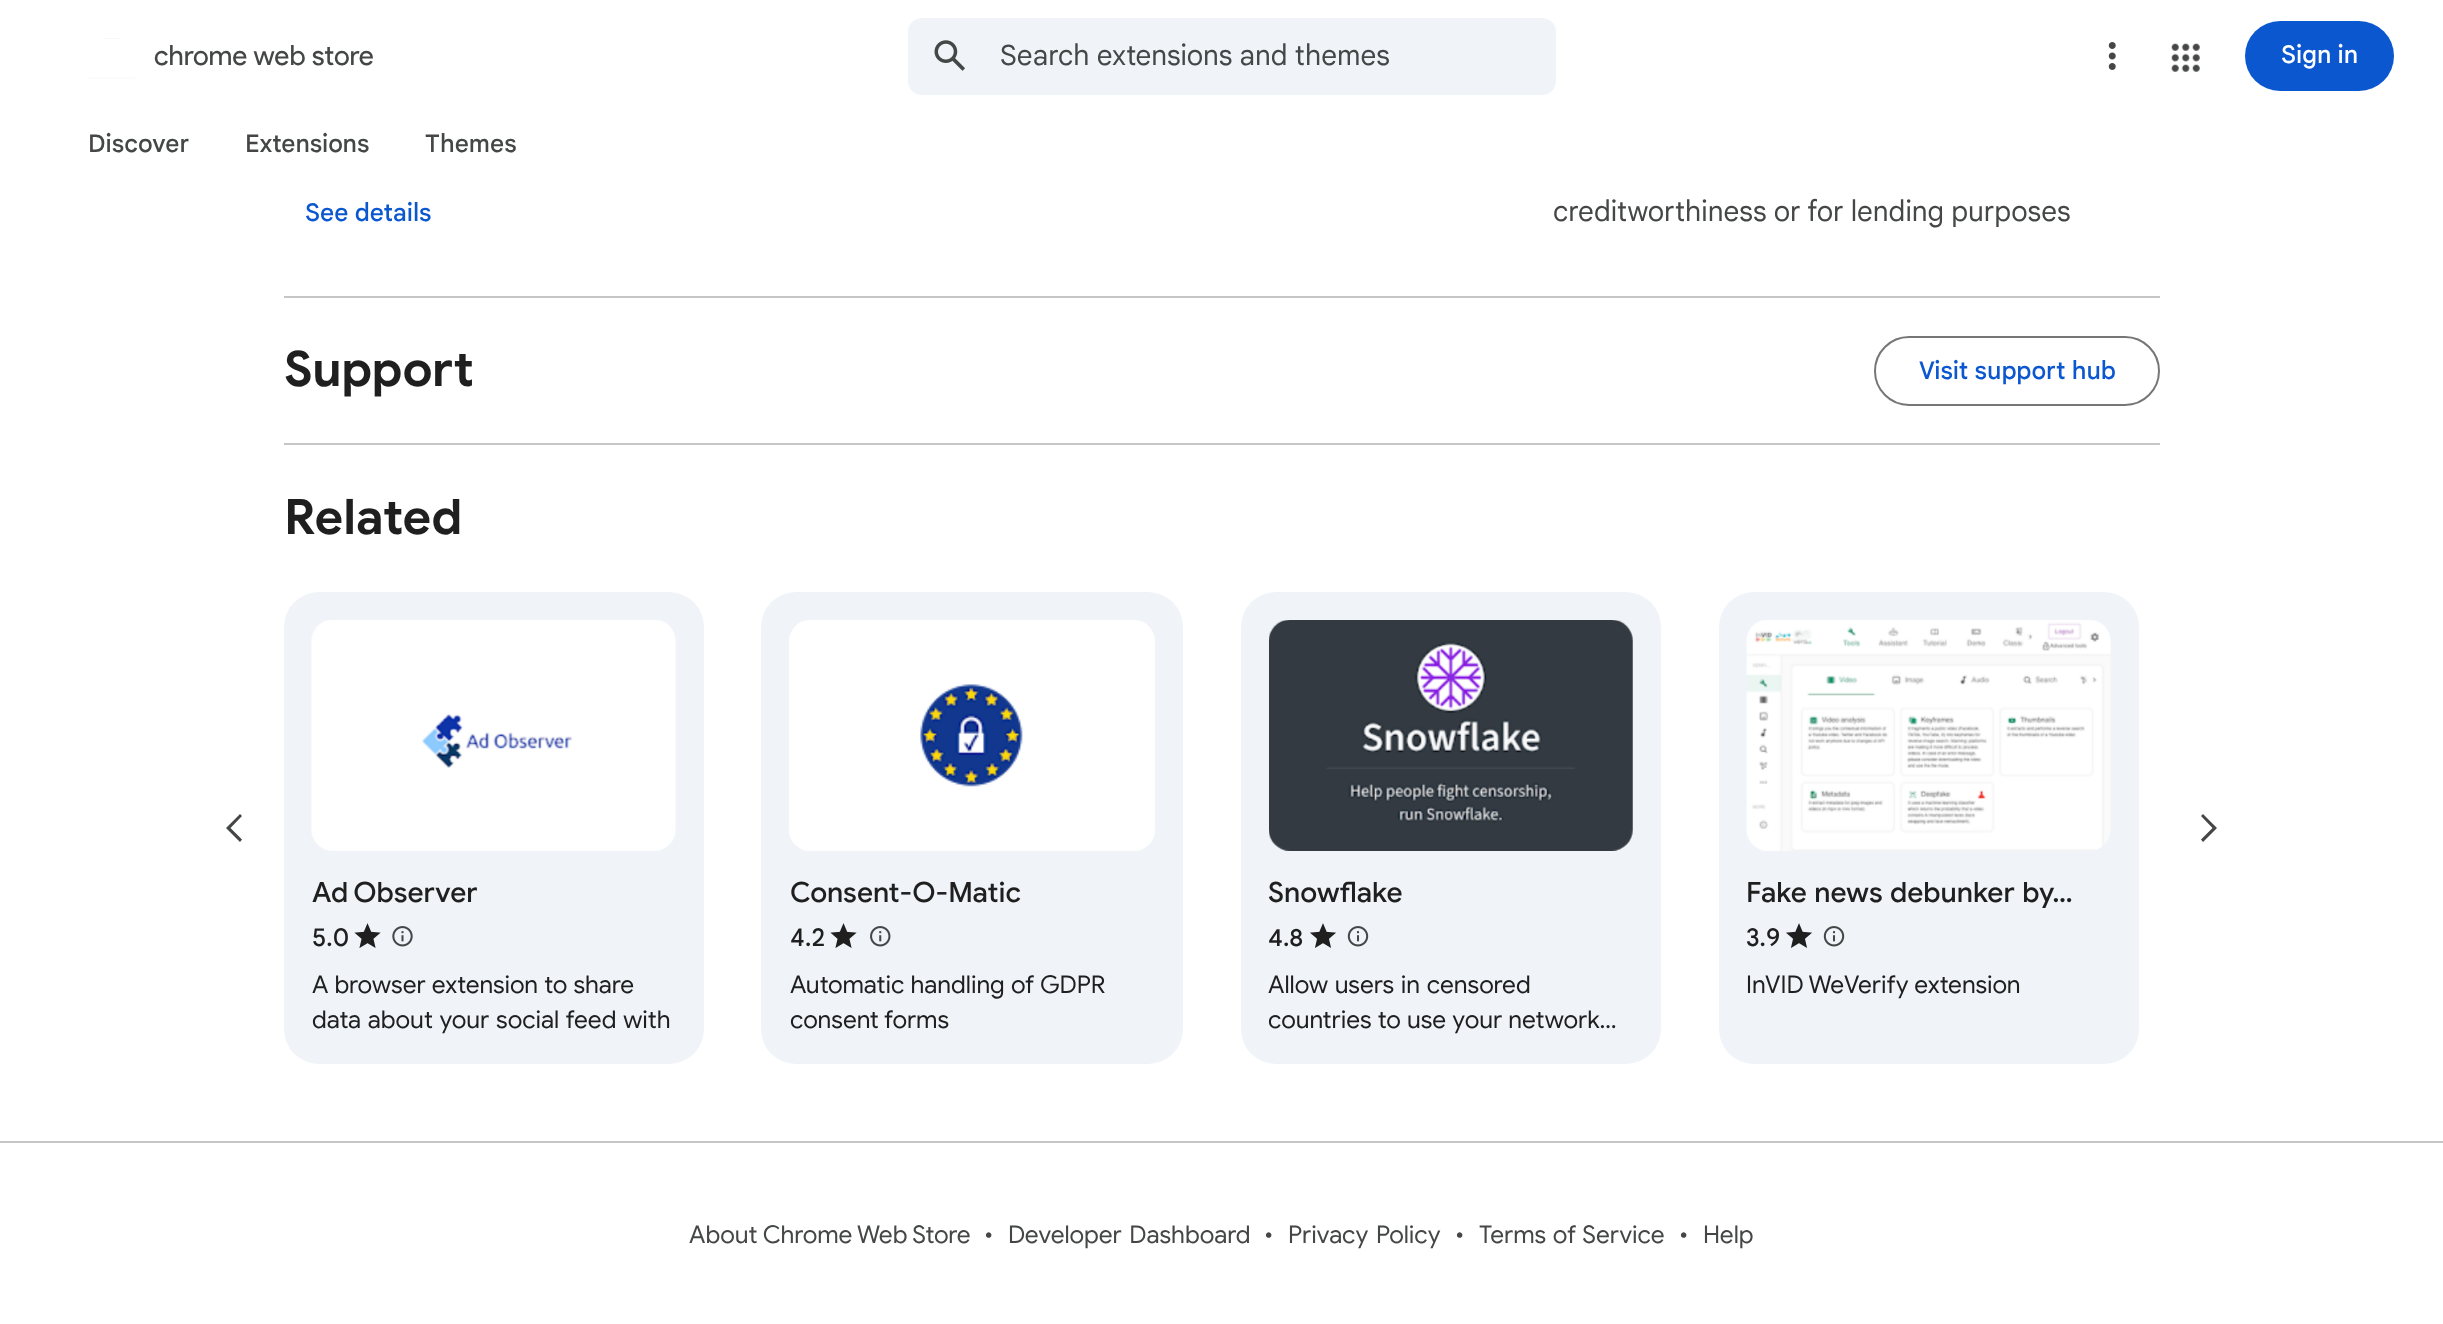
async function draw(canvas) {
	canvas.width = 2443;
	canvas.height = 1324;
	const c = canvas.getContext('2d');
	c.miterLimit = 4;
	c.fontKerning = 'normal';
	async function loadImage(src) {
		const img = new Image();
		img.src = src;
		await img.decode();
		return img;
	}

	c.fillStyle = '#fff';
	c.fillRect(0, 0, 2443, 1324);
	c.drawImage(await loadImage('img1.png'), 87, 38, 49, 41);
	c.font = '28px Product Sans';
	c.fillStyle = '#444746';
	c.fillText('chrome web store', 154, 65);
	c.fillStyle = '#f0f4f9';
	c.beginPath();
	c.roundRect(908, 18, 648, 77, 14);
	c.fill();
	c.drawImage(await loadImage('img2.png'), 934, 40, 31, 31);
	c.font = '28px "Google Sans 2"';
	c.fillStyle = '#444746';
	c.fillText('Search extensions and themes', 1000, 65);
	c.drawImage(await loadImage('img3.png'), 2108, 42, 8, 28);
	c.drawImage(await loadImage('img4.png'), 2171, 43, 29, 29);
	c.fillStyle = '#0b57d0';
	c.beginPath();
	c.roundRect(2245, 21, 149, 70, 35);
	c.fill();
	c.font = '500 24.5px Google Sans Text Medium';
	c.fillStyle = '#fff';
	c.fillText('Sign in', 2281, 63);
	c.fillStyle = '#444746';
	for (const [text, x, y] of [
		['Discover', 88, 152],
		['Extensions', 245, 152],
		['Themes', 425, 152],
	]) {
		c.fillText(text, x, y);
	}
	c.fillStyle = '#c4c7c5';
	c.fillRect(284, 296, 1876, 2);
	c.fillStyle = '#0b57d0';
	c.fillText('See details', 305, 221);
	c.font = '28px "Google Sans 2"';
	c.fillStyle = '#444746';
	c.fillText('creditworthiness or for lending purposes', 1553, 221);
	c.fillStyle = '#c4c7c5';
	c.fillRect(284, 443, 1876, 2);
	c.font = 'bold 49px Google Sans';
	c.fillStyle = '#1f1f1f';
	c.fillText('Support', 284, 386);
	c.beginPath();
	c.roundRect(1875, 337, 284, 68, 34);
	c.strokeStyle = '#747775';
	c.lineWidth = 2;
	c.stroke();
	c.font = '500 24.5px Google Sans Text Medium';
	c.fillStyle = '#0b57d0';
	c.fillText('Visit support hub', 1919, 379);
	c.font = 'bold 49px Google Sans';
	c.fillStyle = '#1f1f1f';
	c.fillText('Related', 284, 534);
	c.fillStyle = '#444746';
	c.beginPath();
	c.moveTo(242, 816);
	c.lineTo(240, 814);
	c.lineTo(226, 828);
	c.lineTo(240, 842);
	c.lineTo(242, 839.5);
	c.lineTo(230.5, 828);
	c.fill();
	c.beginPath();
	c.moveTo(2201, 839.5);
	c.lineTo(2203, 842);
	c.lineTo(2217, 828);
	c.lineTo(2203, 814);
	c.lineTo(2201, 816);
	c.lineTo(2212.5, 828);
	c.fill();
	c.fillStyle = '#f0f4f9';
	c.beginPath();
	c.roundRect(284, 592, 420, 472, 35);
	c.fill();
	c.drawImage(await loadImage('img5.png'), 311, 620, 365, 231);
	c.wordSpacing = '-1px';
	c.font = '500 28px "Google Sans 2"';
	c.fillStyle = '#1f1f1f';
	c.fillText('Ad Observer', 312, 902);
	c.wordSpacing = '0px';
	c.font = '500 24.5px Google Sans';
	c.fillText('5.0', 312, 946);
	c.drawImage(await loadImage('img6.png'), 354, 923, 27, 25);
	c.drawImage(await loadImage('img7.png'), 392, 926, 21, 21);
	c.wordSpacing = '0.5px';
	c.font = '24.5px Google Sans';
	c.fillText('A browser extension to share', 312, 993);
	c.wordSpacing = '1px';
	c.fillText('data about your social feed with', 312, 1028);
	c.fillStyle = '#f0f4f9';
	c.beginPath();
	c.roundRect(761, 592, 422, 472, 35);
	c.fill();
	c.fillStyle = '#fff';
	c.beginPath();
	c.roundRect(789, 620, 366, 231, 21);
	c.fill();
	c.drawImage(await loadImage('img8.png'), 920, 684, 103, 103);
	c.wordSpacing = '0px';
	c.font = '500 28px "Google Sans 2"';
	c.fillStyle = '#1f1f1f';
	c.fillText('Consent-O-Matic', 790, 902);
	c.font = '500 24.5px Google Sans';
	c.fillText('4.2', 790, 946);
	c.drawImage(await loadImage('img6.png'), 830, 923, 27, 25);
	c.drawImage(await loadImage('img9.png'), 870, 926, 21, 21);
	c.wordSpacing = '0.5px';
	c.font = '24.5px Google Sans';
	c.fillText('Automatic handling of GDPR', 790, 993);
	c.wordSpacing = '0px';
	c.fillText('consent forms', 790, 1028);
	c.fillStyle = '#f0f4f9';
	c.beginPath();
	c.roundRect(1241, 592, 420, 472, 35);
	c.fill();
	c.drawImage(await loadImage('img10.png'), 1269, 620, 364, 231);
	c.font = '500 28px "Google Sans 2"';
	c.fillStyle = '#1f1f1f';
	c.fillText('Snowflake', 1268, 902);
	c.font = '500 24.5px "Google Sans 2"';
	c.fillText('4.8', 1268, 946);
	c.drawImage(await loadImage('img11.png'), 1310, 923, 26, 25);
	c.drawImage(await loadImage('img12.png'), 1347, 926, 22, 21);
	c.wordSpacing = '1px';
	c.font = '24.5px Google Sans';
	c.fillText('Allow users in censored', 1268, 993);
	c.save();
	c.beginPath();
	c.rect(1269, 966, 364, 70);
	c.clip();
	c.wordSpacing = '0.5px';
	c.fillText('countries to use your network…', 1268, 1028);
	c.restore();
	c.fillStyle = '#f0f4f9';
	c.beginPath();
	c.roundRect(1719, 592, 420, 472, 35);
	c.fill();
	c.drawImage(await loadImage('img13.png'), 1746, 620, 365, 231);
	c.font = '500 28px "Google Sans 2"';
	c.fillStyle = '#1f1f1f';
	c.fillText('Fake news debunker by…', 1746, 902);
	c.wordSpacing = '0px';
	c.font = '500 24.5px Google Sans';
	c.fillText('3.9', 1746, 946);
	c.drawImage(await loadImage('img11.png'), 1786, 923, 26, 25);
	c.drawImage(await loadImage('img12.png'), 1823, 926, 22, 21);
	c.font = '24.5px Google Sans';
	c.fillText('InVID WeVerify extension', 1746, 993);
	c.fillStyle = '#c4c7c5';
	c.fillRect(0, 1141, 2443, 2);
	c.fillStyle = '#444746';
	c.fillText('About Chrome Web Store', 689, 1243);
	c.fillText('•', 984, 1243);
	c.wordSpacing = '2px';
	c.fillText('Developer Dashboard', 1008, 1243);
	c.wordSpacing = '0px';
	c.fillText('•', 1264, 1243);
	c.wordSpacing = '2px';
	c.fillText('Privacy Policy', 1288, 1243);
	c.wordSpacing = '0px';
	c.fillText('•', 1455, 1243);
	c.wordSpacing = '1px';
	c.fillText('Terms of Service', 1479, 1243);
	c.wordSpacing = '0px';
	c.fillText('•', 1679, 1243);
	c.fillText('Help', 1703, 1243);
}

draw(document.querySelector('canvas'));
